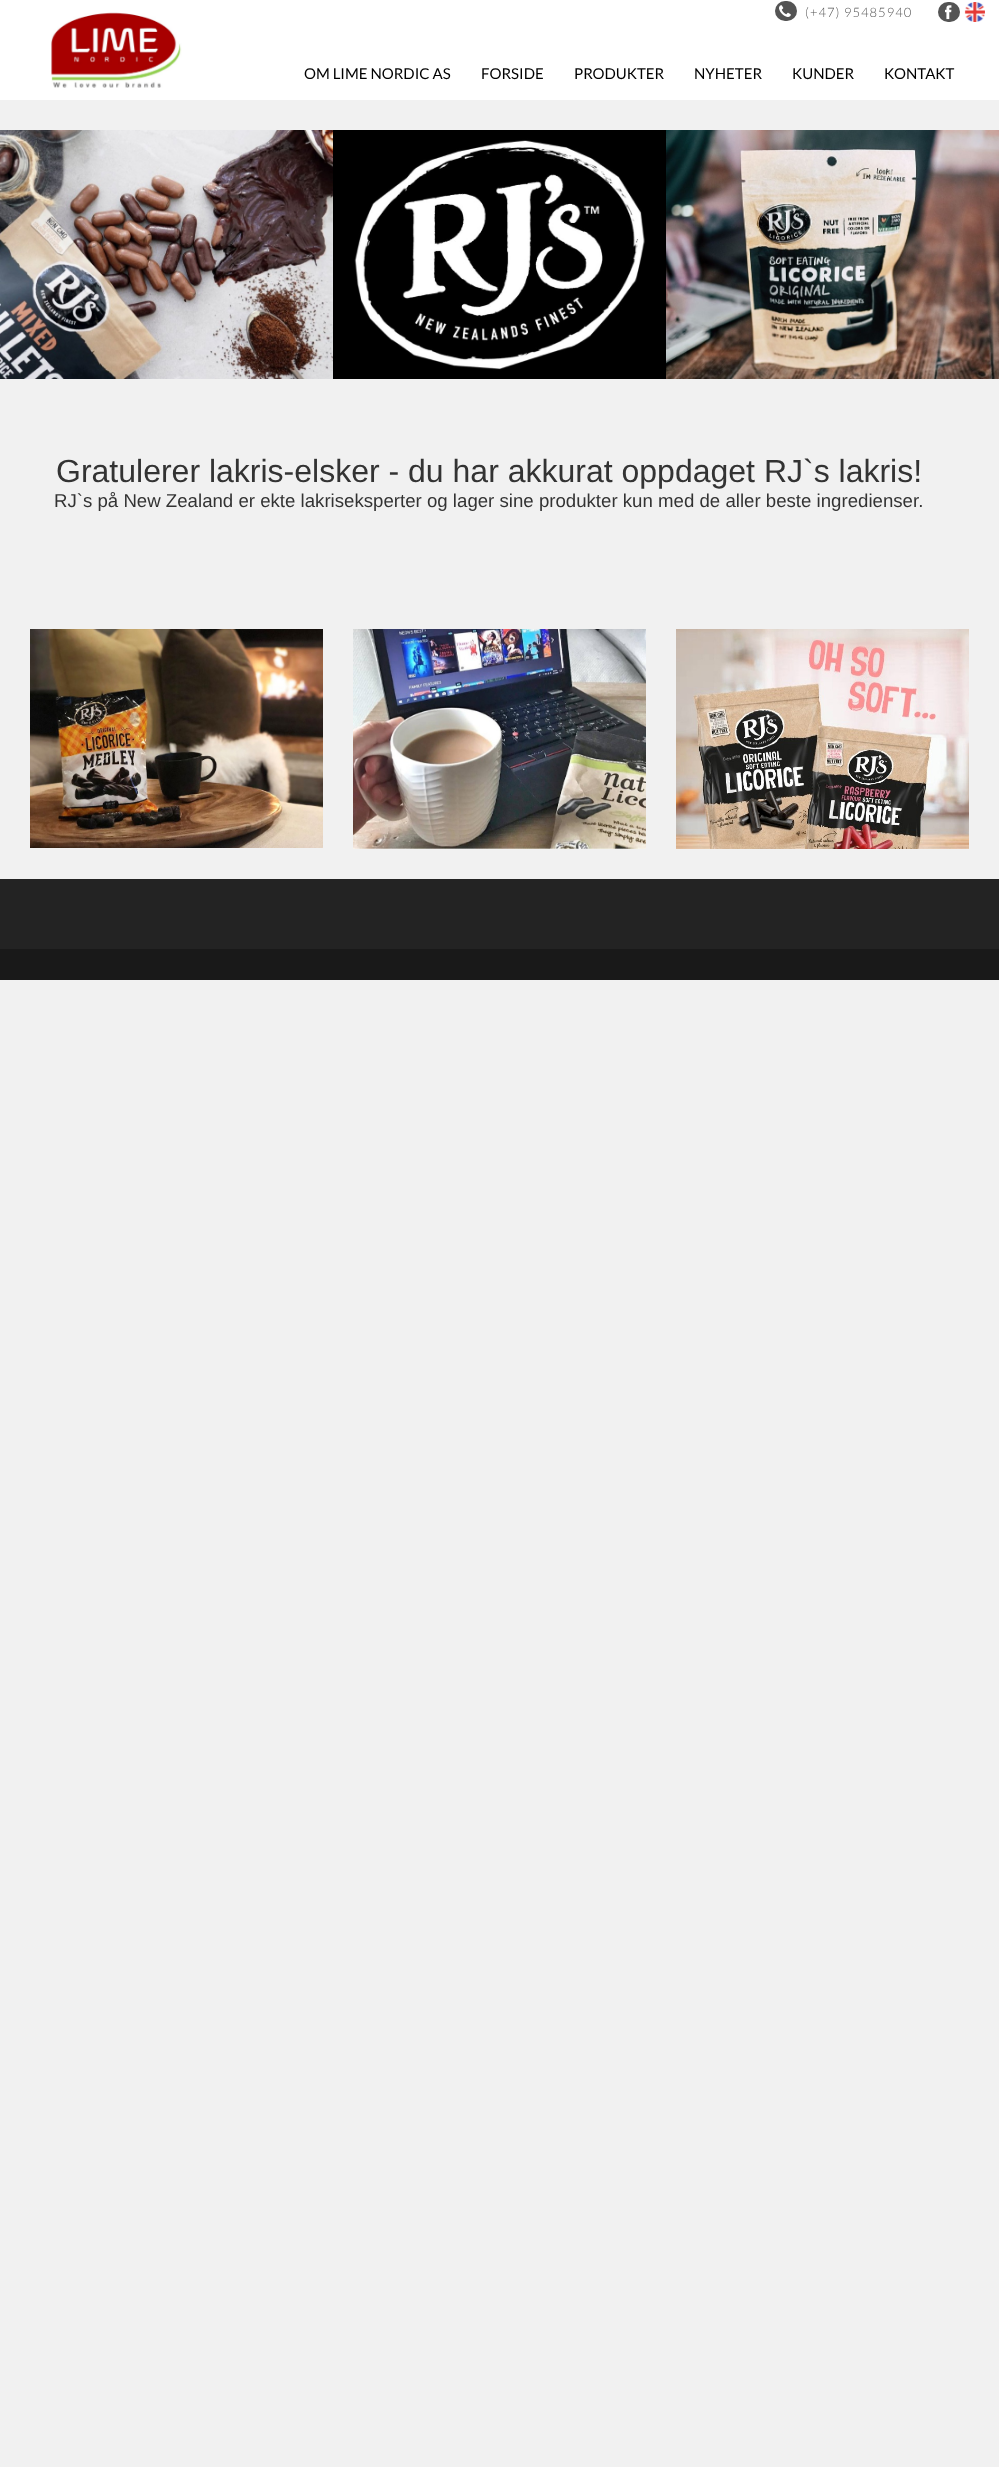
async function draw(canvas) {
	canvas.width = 999;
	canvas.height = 2467;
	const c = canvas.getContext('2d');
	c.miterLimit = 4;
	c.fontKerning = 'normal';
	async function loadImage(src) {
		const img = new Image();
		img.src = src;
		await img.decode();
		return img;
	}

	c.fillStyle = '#f1f1f1';
	c.fillRect(0, 0, 999, 2467);
	c.fillStyle = '#fff';
	c.fillRect(0, 0, 999, 100);
	c.drawImage(await loadImage('img1.png'), 51, 12, 131, 76);
	c.fillStyle = '#545454';
	c.beginPath();
	c.roundRect(775, 1, 22, 20, 10);
	c.fill();
	c.drawImage(await loadImage('img2.png'), 779, 5, 12, 12);
	c.letterSpacing = '1px';
	c.font = '300 13px Lato';
	c.fillText('(+47) 95485940', 805, 17);
	c.beginPath();
	c.roundRect(938, 2, 22, 20, 10);
	c.fill();
	c.drawImage(await loadImage('img3.png'), 945, 5, 7, 15);
	c.drawImage(await loadImage('img4.png'), 964, 2, 21, 20);
	c.letterSpacing = '0px';
	c.font = '15px Lato';
	c.fillStyle = '#000';
	for (const [text, x, y] of [
		['OM LIME NORDIC AS', 304, 79],
		['FORSIDE', 481, 79],
		['PRODUKTER', 574, 79],
		['NYHETER', 694, 79],
		['KUNDER', 792, 79],
		['KONTAKT', 884, 79],
	]) {
		c.fillText(text, x, y);
	}
	c.drawImage(await loadImage('img5.png'), 0, 130, 333, 249);
	c.drawImage(await loadImage('img6.png'), 333, 130, 333, 249);
	c.drawImage(await loadImage('img7.png'), 666, 130, 333, 249);
	c.font = '32px Liberation Sans';
	c.fillStyle = '#333';
	c.fillText('Gratulerer lakris-elsker - du har akkurat oppdaget RJ`s lakris!', 56, 482);
	c.font = '18.65px Liberation Sans';
	c.fillText('RJ`s på New Zealand er ekte lakriseksperter og lager sine produkter kun med de aller beste ingredienser.', 54, 507);
	c.drawImage(await loadImage('img8.png'), 30, 629, 293, 219);
	c.drawImage(await loadImage('img9.png'), 353, 629, 293, 220);
	c.drawImage(await loadImage('img10.png'), 676, 629, 293, 220);
	c.fillStyle = '#232323';
	c.fillRect(0, 879, 999, 70);
	c.fillStyle = '#191919';
	c.fillRect(0, 949, 999, 31);
}

draw(document.querySelector('canvas'));
